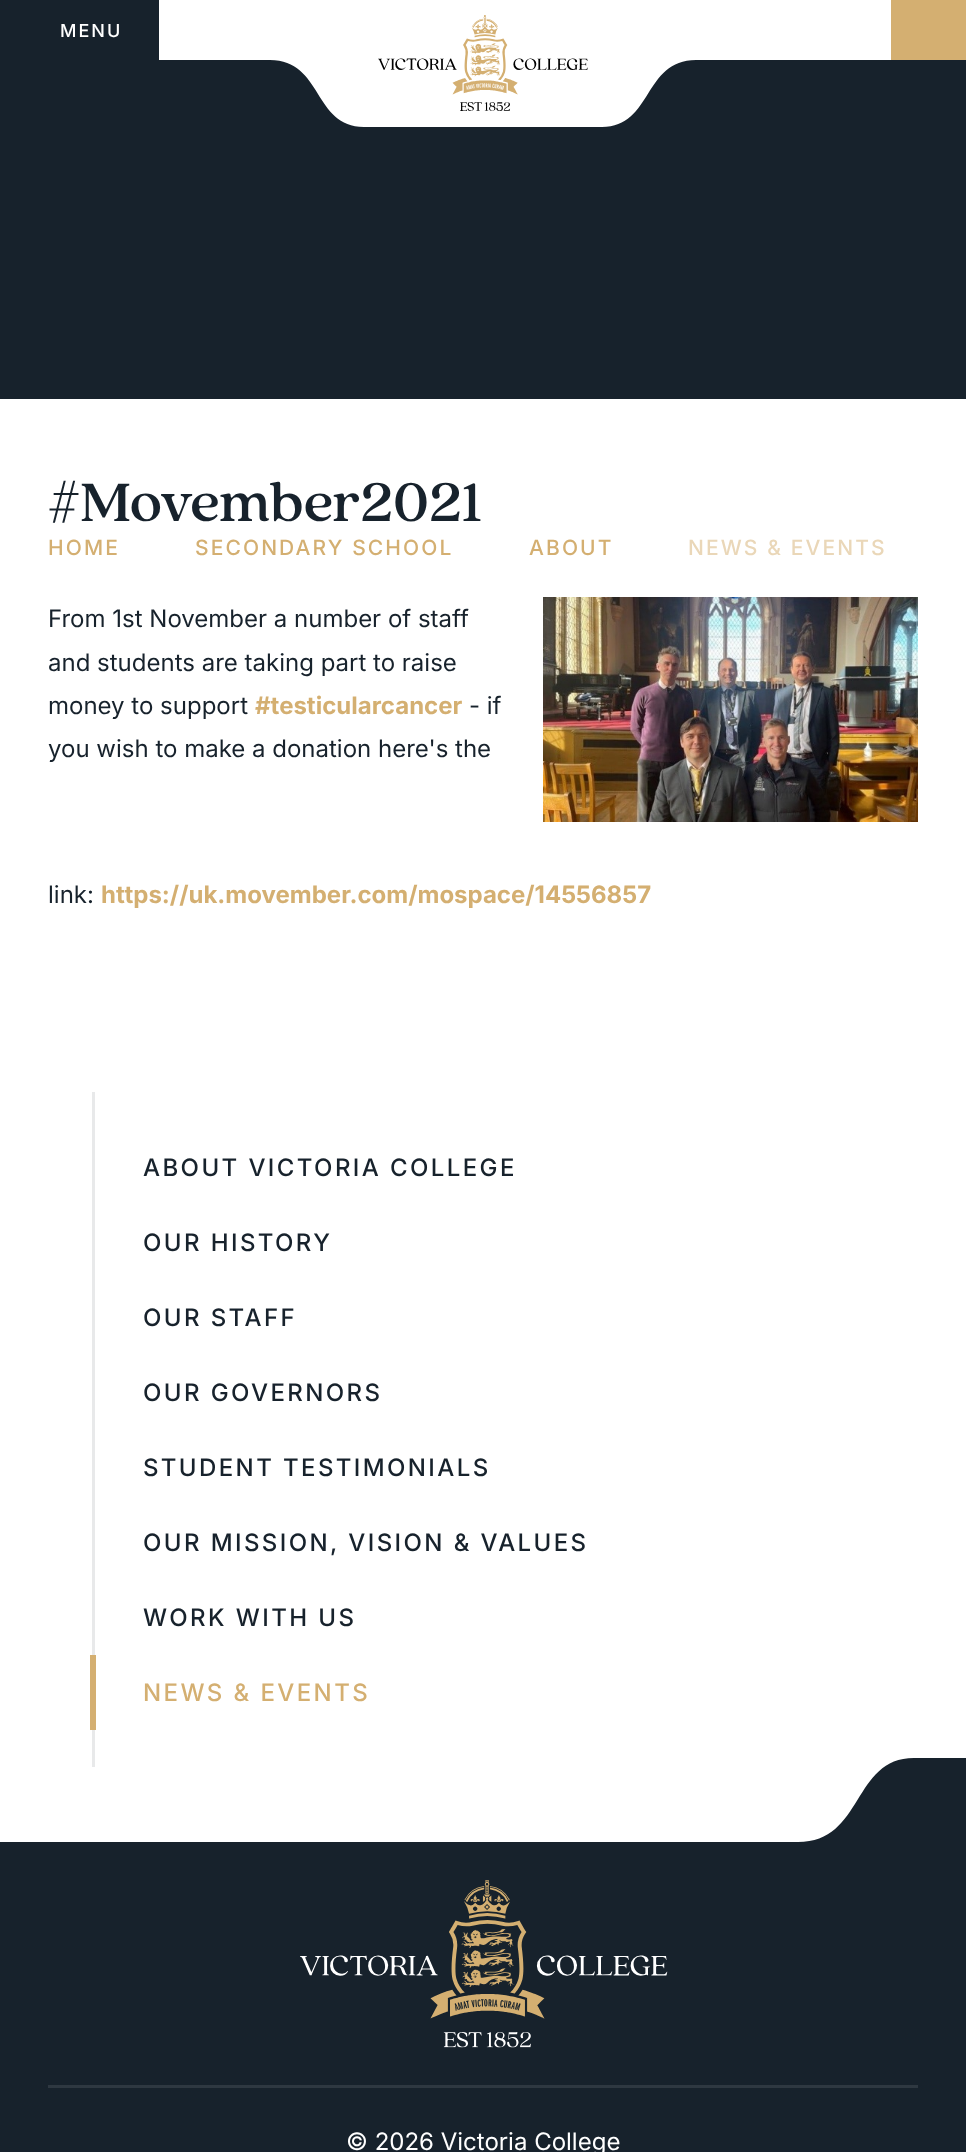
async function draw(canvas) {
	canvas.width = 966;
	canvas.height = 2152;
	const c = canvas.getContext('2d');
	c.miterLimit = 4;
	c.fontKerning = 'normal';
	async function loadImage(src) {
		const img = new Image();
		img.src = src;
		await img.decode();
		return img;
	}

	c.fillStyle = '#fff';
	c.fillRect(0, 0, 966, 2152);
	c.fillStyle = '#17222c';
	c.fillRect(0, 0, 159, 60);
	c.letterSpacing = '2px';
	c.font = '500 18px Inter';
	c.fillStyle = '#fff';
	c.fillText('MENU', 60, 37);
	c.fillStyle = '#d4af71';
	c.fillRect(891, 0, 75, 60);
	c.fillStyle = '#17222c';
	c.fillRect(0, 60, 966, 339);
	c.fillStyle = '#fff';
	c.beginPath();
	c.moveTo(483, 60);
	c.lineTo(270, 60);
	c.bezierCurveTo(323, 60, 313, 127, 364, 127);
	c.lineTo(602, 127);
	c.bezierCurveTo(653, 127, 643, 60, 696, 60);
	c.closePath();
	c.fill();
	c.drawImage(await loadImage('img1.png'), 378, 15, 210, 96);
	c.letterSpacing = '0px';
	c.font = '500 60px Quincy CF';
	c.fillStyle = '#17222c';
	c.fillText('#Movember2021', 48, 521);
	c.letterSpacing = '2.1px';
	c.font = '500 21px Inter';
	c.fillStyle = '#d4af71';
	for (const [text, x, y] of [
		['HOME', 48, 555],
		['SECONDARY SCHOOL', 195, 555],
		['ABOUT', 529, 555],
	]) {
		c.fillText(text, x, y);
	}
	c.fillStyle = '#ead7b8';
	c.fillText('NEWS & EVENTS', 688, 555);
	c.letterSpacing = '0px';
	c.font = '24px Inter';
	c.fillStyle = '#17222c';
	for (const [text, x, y] of [
		['From 1st November a number of staff', 48, 627],
		['and students are taking part to raise', 48, 671],
		['money to support', 48, 714],
	]) {
		c.fillText(text, x, y);
	}
	c.font = 'bold 24px Inter';
	c.fillStyle = '#d4af71';
	c.fillText('#testicularcancer', 255, 714);
	c.font = '24px Inter';
	c.fillStyle = '#17222c';
	for (const [text, x, y] of [
		['- if', 469, 714],
		['you wish to make a donation here\'s the', 48, 757],
		['link:', 48, 903],
	]) {
		c.fillText(text, x, y);
	}
	c.font = 'bold 24px Inter';
	c.fillStyle = '#d4af71';
	c.fillText('https://uk.movember.com/mospace/14556857', 101, 903);
	c.drawImage(await loadImage('img2.png'), 543, 597, 375, 225);
	c.fillStyle = '#e8e9ea';
	c.fillRect(92, 1092, 3, 675);
	c.letterSpacing = '2.4px';
	c.font = '500 24px Inter';
	c.fillStyle = '#17222c';
	for (const [text, x, y] of [
		['ABOUT VICTORIA COLLEGE', 143, 1176],
		['OUR HISTORY', 143, 1251],
		['OUR STAFF', 143, 1326],
		['OUR GOVERNORS', 143, 1401],
		['STUDENT TESTIMONIALS', 143, 1476],
		['OUR MISSION, VISION & VALUES', 143, 1551],
		['WORK WITH US', 143, 1626],
	]) {
		c.fillText(text, x, y);
	}
	c.fillStyle = '#d4af71';
	c.fillRect(90, 1655, 6, 75);
	c.fillText('NEWS & EVENTS', 143, 1701);
	c.fillStyle = '#17222c';
	c.fillRect(0, 1842, 966, 310);
	c.beginPath();
	c.moveTo(798, 1842);
	c.lineTo(966, 1842);
	c.lineTo(966, 1758);
	c.lineTo(914, 1758);
	c.bezierCurveTo(852, 1758, 864, 1842, 798, 1842);
	c.closePath();
	c.fill();
	c.drawImage(await loadImage('img3.png'), 300, 1880, 368, 168);
	c.fillStyle = '#2e3841';
	c.fillRect(48, 2085, 870, 3);
	c.letterSpacing = '0px';
	c.font = '24px Inter';
	c.fillStyle = '#fff';
	c.fillText('© 2026 Victoria College', 346, 2150);
}

draw(document.querySelector('canvas'));
